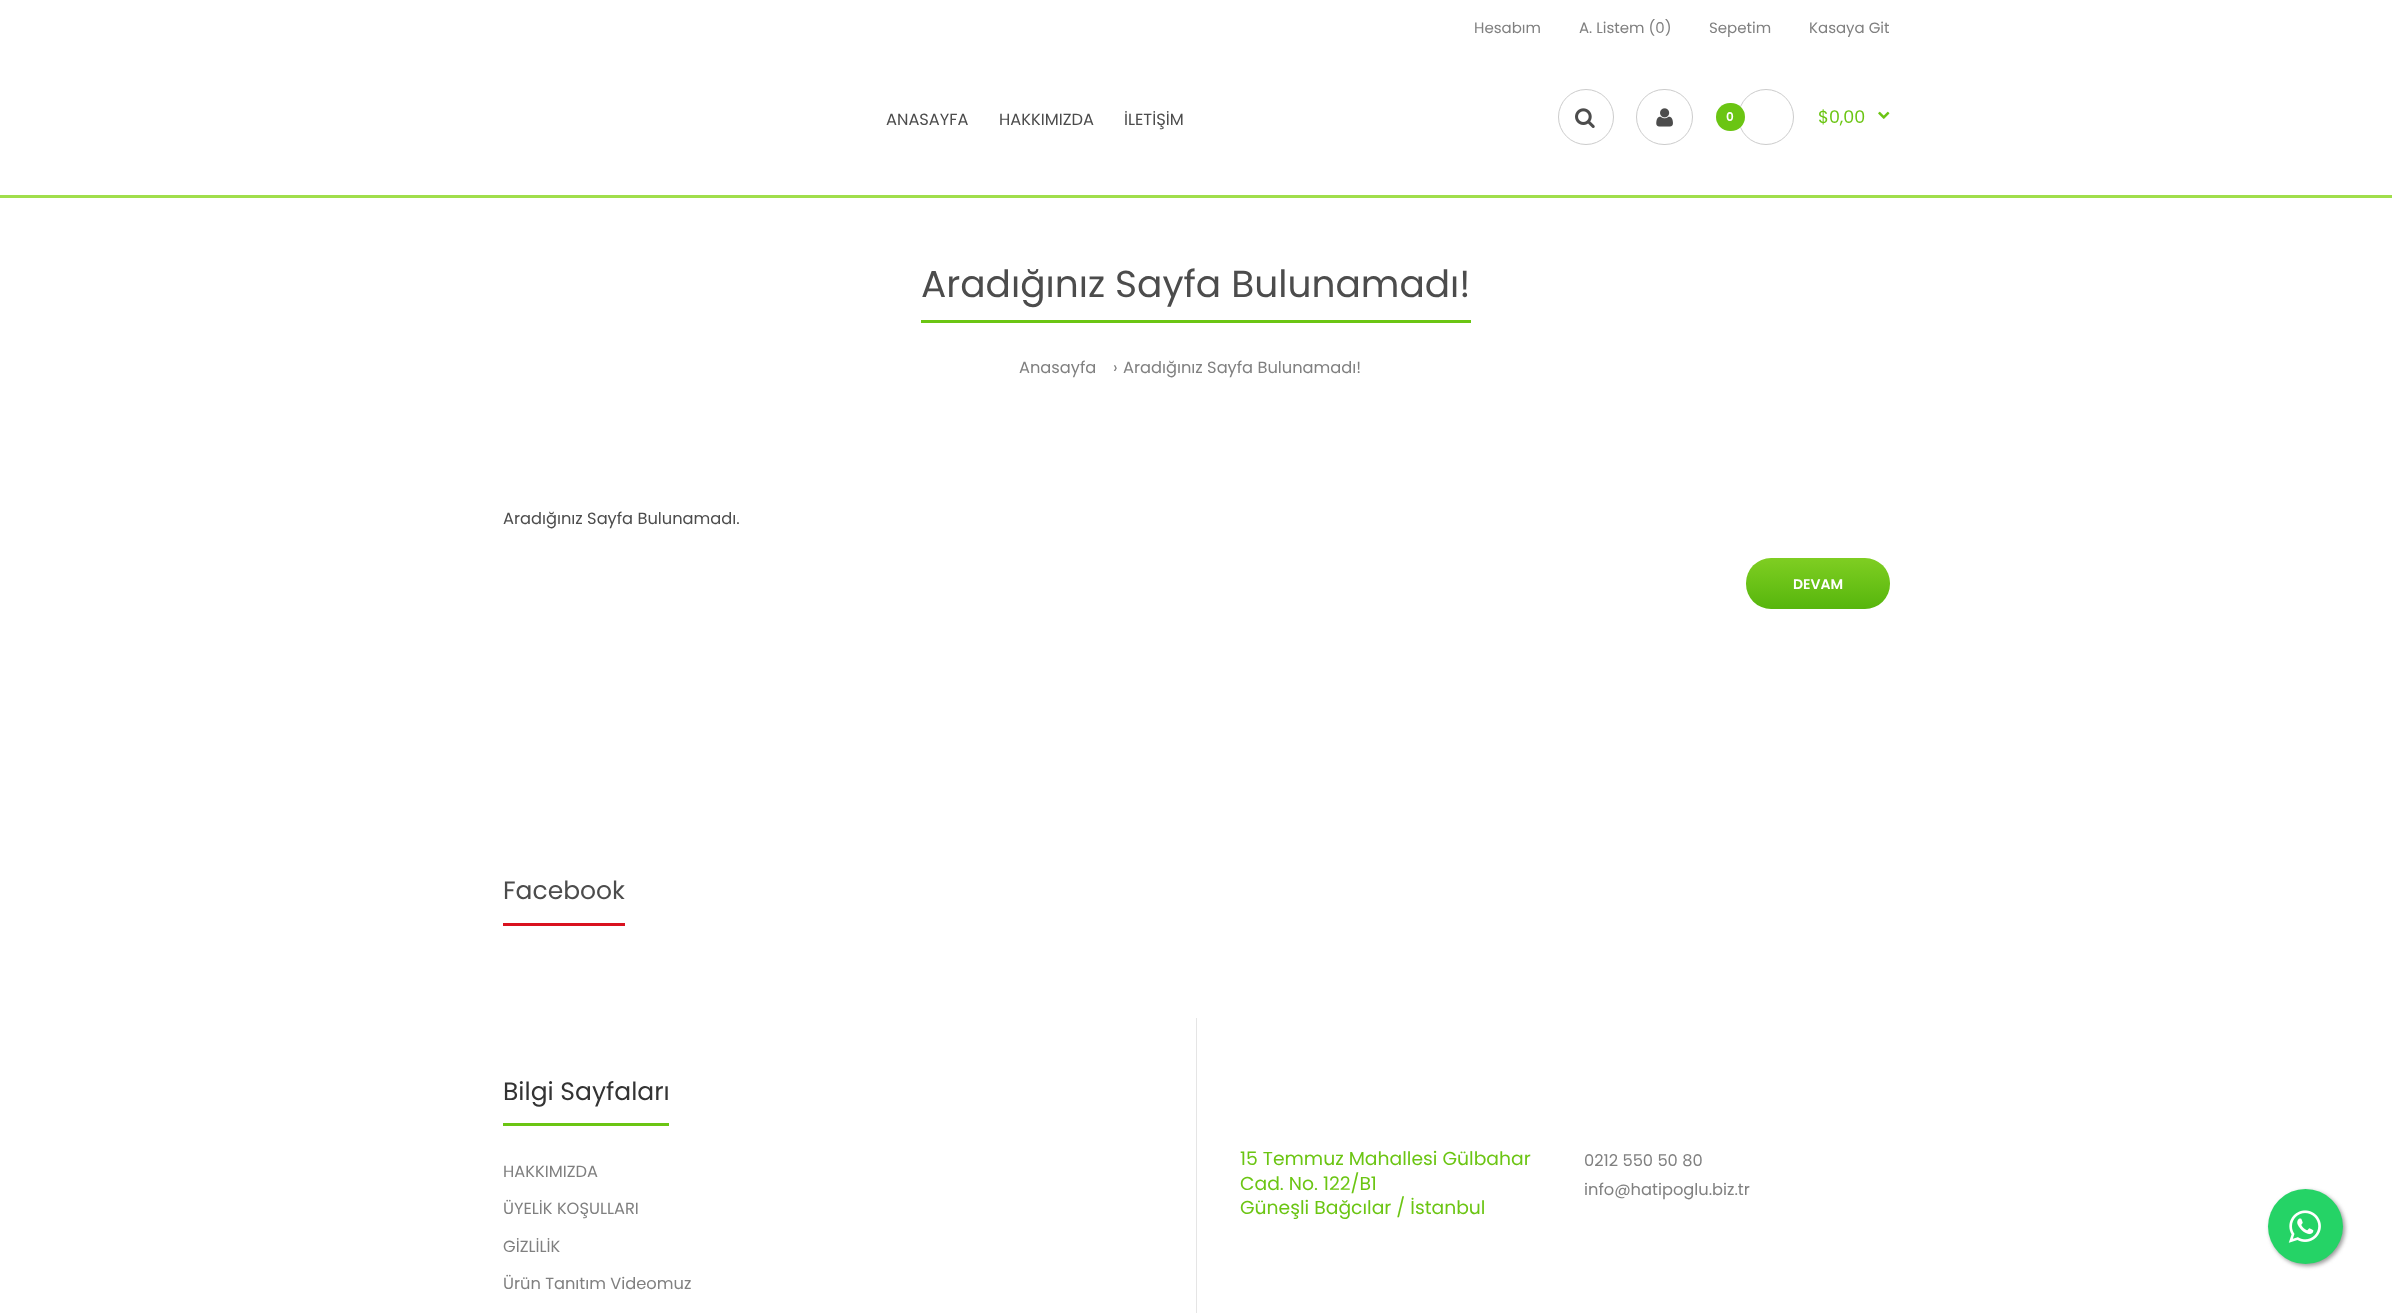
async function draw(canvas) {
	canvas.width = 2392;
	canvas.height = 1313;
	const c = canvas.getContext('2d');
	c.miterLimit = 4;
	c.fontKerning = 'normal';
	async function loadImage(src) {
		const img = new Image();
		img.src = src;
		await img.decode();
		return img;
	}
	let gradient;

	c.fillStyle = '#fff';
	c.fillRect(0, 0, 2392, 1313);
	c.fillStyle = '#a0de4b';
	c.fillRect(0, 195, 2392, 3);
	c.font = '15px Poppins';
	c.fillStyle = '#808080';
	for (const [text, x, y] of [
		['Hesabım', 1474, 33],
		['A. Listem (0)', 1579, 33],
		['Sepetim', 1709, 33],
		['Kasaya Git', 1809, 33],
	]) {
		c.fillText(text, x, y);
	}
	c.font = '16.25px Poppins';
	c.fillStyle = '#4c4c4c';
	for (const [text, x, y] of [
		['ANASAYFA', 886, 125],
		['HAKKIMIZDA', 999, 125],
		['İLETİŞİM', 1124, 125],
	]) {
		c.fillText(text, x, y);
	}
	c.beginPath();
	c.arc(1586, 117, 27.5, 0, 2 * Math.PI);
	c.strokeStyle = '#ccc';
	c.stroke();
	c.drawImage(await loadImage('img1.png'), 1575, 108, 20, 20);
	c.beginPath();
	c.roundRect(1636.5, 89.5, 56, 55, 27.5);
	c.stroke();
	c.drawImage(await loadImage('img2.png'), 1656, 108, 17, 19);
	c.beginPath();
	c.arc(1766, 117, 27.5, 0, 2 * Math.PI);
	c.stroke();
	c.fillStyle = '#6bc513';
	c.beginPath();
	c.roundRect(1716, 103, 29, 28, 14);
	c.fill();
	c.font = '600 12px Poppins';
	c.fillStyle = '#fff';
	c.fillText('0', 1726, 121);
	c.font = '17.5px Poppins';
	c.fillStyle = '#6bc513';
	c.fillText('$0,00', 1818, 123);
	c.drawImage(await loadImage('img3.png'), 1878, 111, 12, 8);
	c.fillRect(921, 320, 550, 3);
	c.font = '37.5px Poppins';
	c.fillStyle = '#4c4c4c';
	c.fillText('Aradığınız Sayfa Bulunamadı!', 921, 297);
	c.font = '16.25px Poppins';
	c.fillStyle = '#808080';
	for (const [text, x, y] of [
		['Anasayfa', 1019, 373],
		['›', 1113, 373],
		['Aradığınız Sayfa Bulunamadı!', 1123, 373],
	]) {
		c.fillText(text, x, y);
	}
	c.fillStyle = '#4c4c4c';
	c.fillText('Aradığınız Sayfa Bulunamadı.', 503, 524);
	gradient = c.createLinearGradient(1818, 558, 1818, 609);
	gradient.addColorStop(0, '#57b60d');
	gradient.addColorStop(0, '#7fce22');
	gradient.addColorStop(0.99, '#57b60d');
	c.fillStyle = gradient;
	c.beginPath();
	c.roundRect(1746, 558, 144, 51, 25);
	c.fill();
	c.font = '600 14px Poppins';
	c.fillStyle = '#fff';
	c.fillText('DEVAM', 1793, 589);
	c.fillStyle = '#d9121f';
	c.fillRect(503, 923, 122, 3);
	c.font = '25px Poppins';
	c.fillStyle = '#4c4c4c';
	c.fillText('Facebook', 503, 899);
	c.fillStyle = '#6bc513';
	c.fillRect(503, 1123, 166, 3);
	c.fillStyle = '#333';
	c.fillText('Bilgi Sayfaları', 503, 1100);
	c.font = '16.25px Poppins';
	c.fillStyle = '#808080';
	for (const [text, x, y] of [
		['HAKKIMIZDA', 503, 1177],
		['ÜYELİK KOŞULLARI', 503, 1214],
		['GİZLİLİK', 503, 1252],
		['Ürün Tanıtım Videomuz', 503, 1289],
	]) {
		c.fillText(text, x, y);
	}
	c.fillStyle = '#e5e5e5';
	c.fillRect(1196, 1018, 1, 295);
	c.font = '18.75px Poppins';
	c.fillStyle = '#6bc513';
	for (const [text, x, y] of [
		['15 Temmuz Mahallesi Gülbahar', 1240, 1165],
		['Cad. No. 122/B1', 1240, 1190],
		['Güneşli Bağcılar / İstanbul', 1240, 1214],
	]) {
		c.fillText(text, x, y);
	}
	c.font = '16.25px Poppins';
	c.fillStyle = '#808080';
	c.fillText('0212 550 50 80', 1584, 1166);
	c.fillText('info@hatipoglu.biz.tr', 1584, 1195);
	c.fillStyle = '#999';
	c.filter = 'blur(2px)';
	c.beginPath();
	c.roundRect(2270, 1191, 75, 75, 37.5);
	c.fill();
	c.filter = 'none';
	c.fillStyle = '#25d366';
	c.beginPath();
	c.arc(2305.5, 1226.5, 37.5, 0, 2 * Math.PI);
	c.fill();
	c.drawImage(await loadImage('img4.png'), 2288, 1210, 33, 33);
}

draw(document.querySelector('canvas'));
